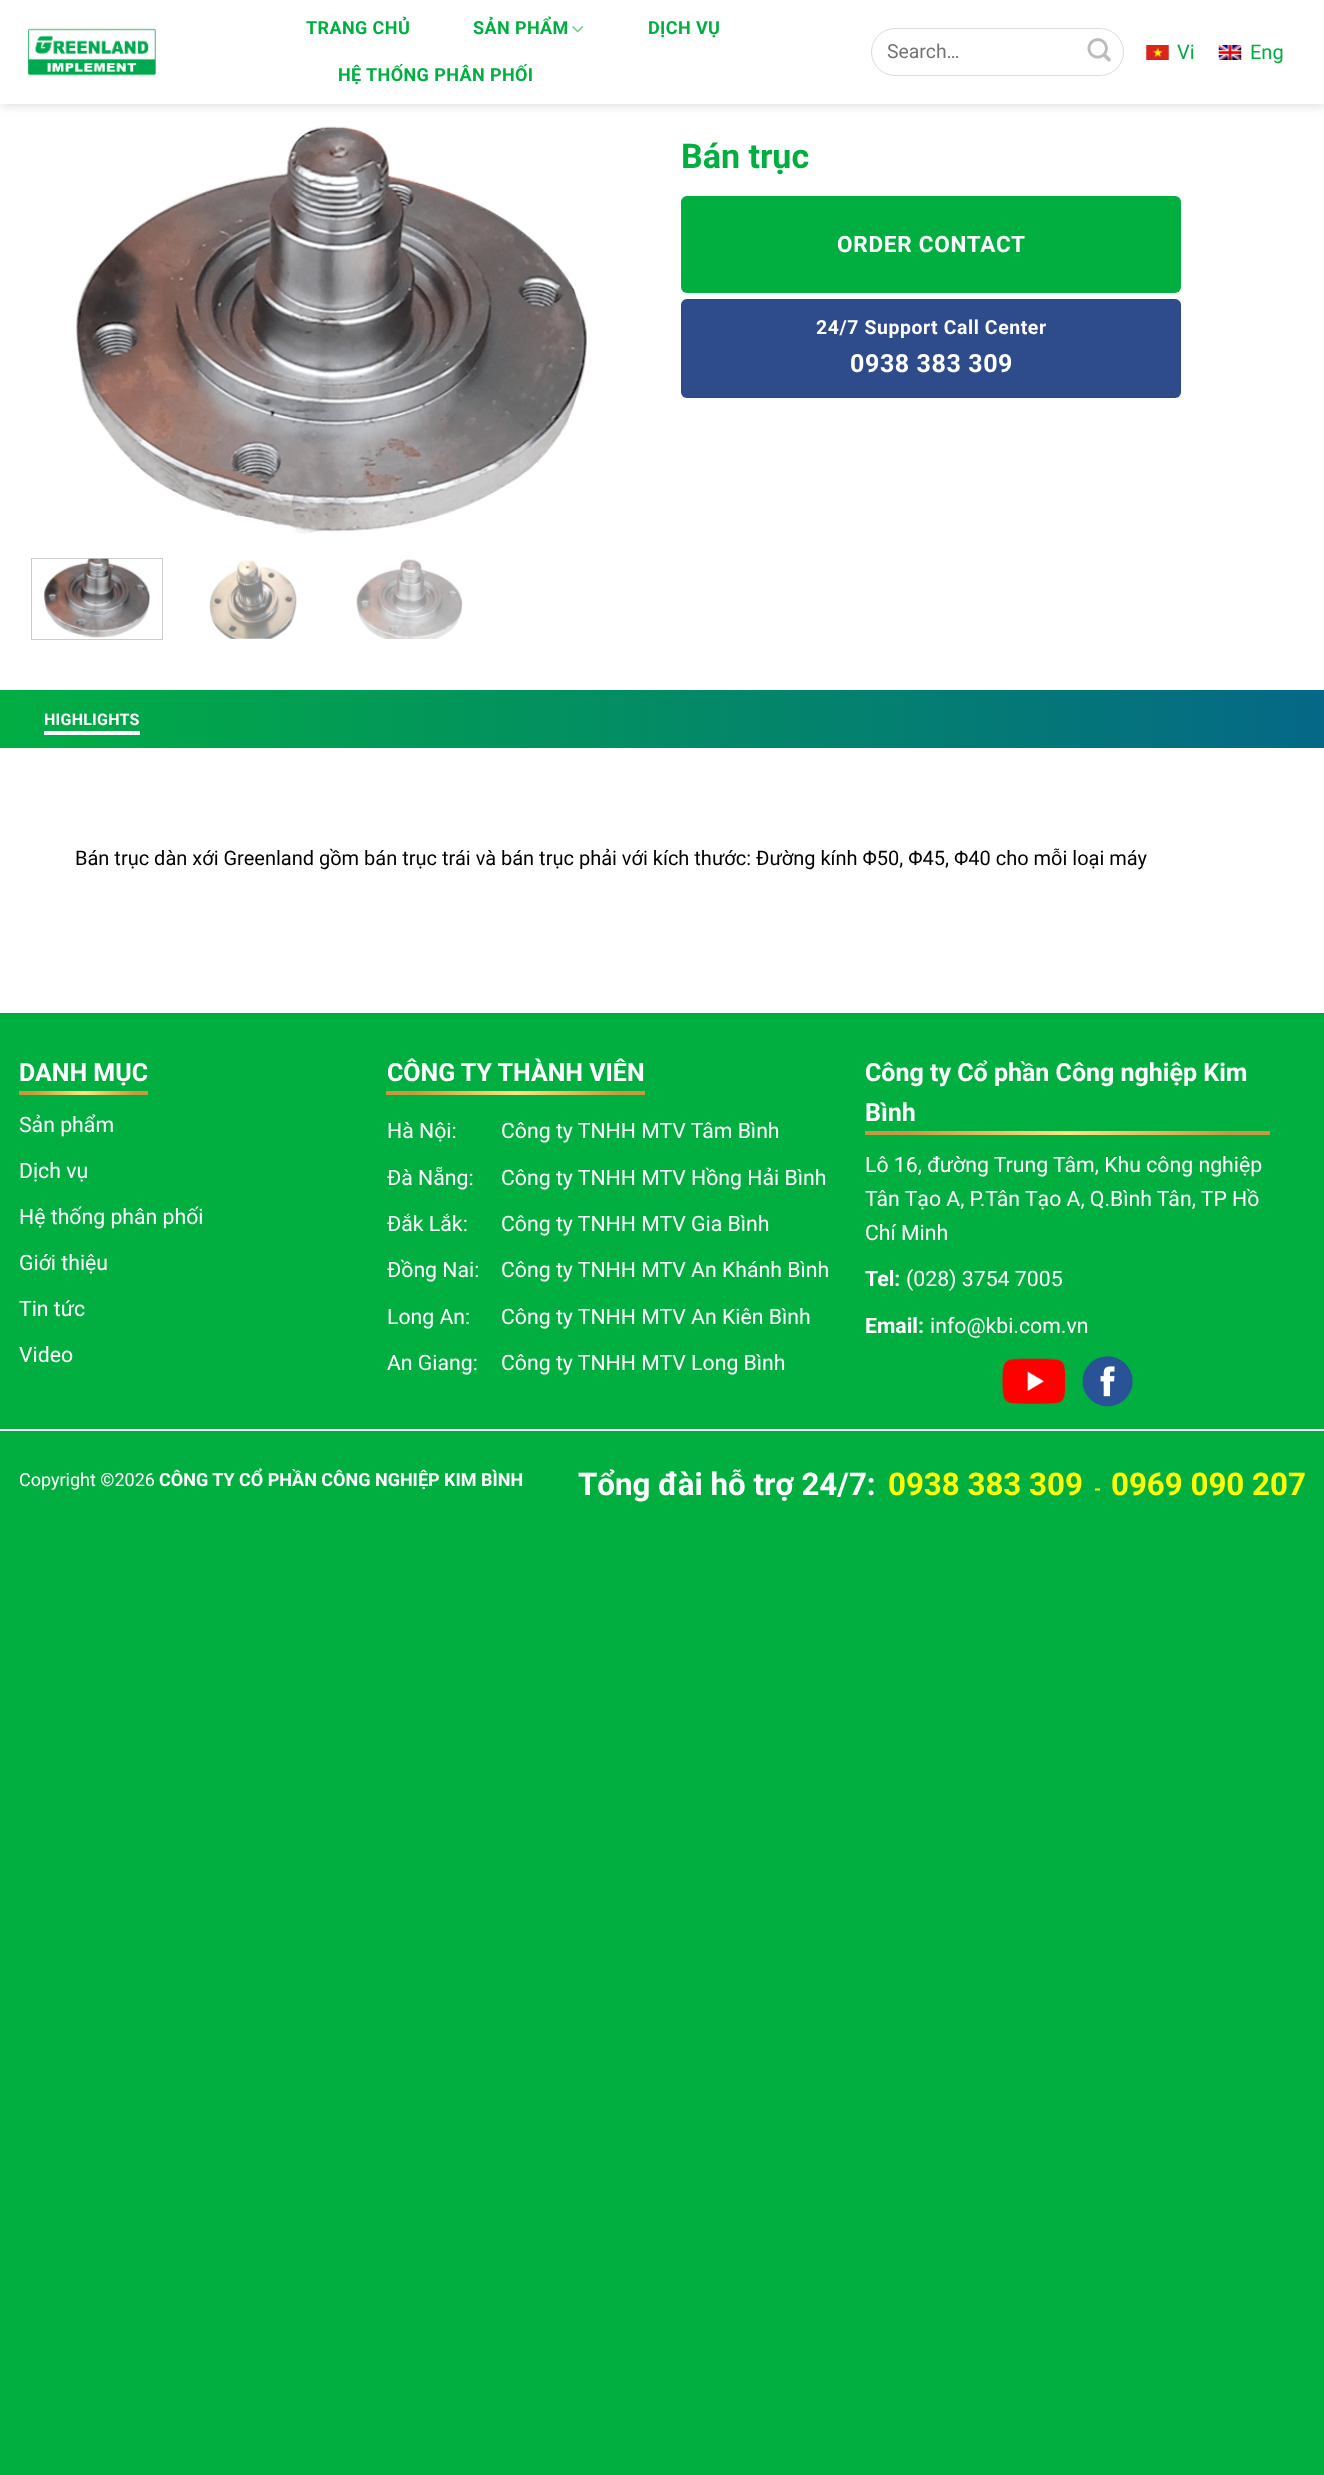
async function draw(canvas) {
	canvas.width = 1324;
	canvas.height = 2475;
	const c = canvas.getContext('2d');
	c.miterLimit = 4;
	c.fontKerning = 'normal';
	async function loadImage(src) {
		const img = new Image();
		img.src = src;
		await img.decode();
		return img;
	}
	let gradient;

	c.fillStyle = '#00af40';
	c.fillRect(0, 0, 1324, 2475);
	c.fillStyle = '#fff';
	c.fillRect(0, 0, 1324, 1013);
	c.save();
	c.beginPath();
	c.moveTo(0, 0);
	c.lineTo(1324, 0);
	c.lineTo(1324, 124);
	c.lineTo(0, 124);
	c.closePath();
	c.moveTo(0, 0);
	c.lineTo(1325, 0);
	c.lineTo(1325, 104);
	c.lineTo(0, 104);
	c.closePath();
	c.clip('evenodd');
	c.fillStyle = '#00000026';
	c.filter = 'blur(6px)';
	c.beginPath();
	c.rect(1, 1, 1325, 104);
	c.fill();
	c.filter = 'none';
	c.restore();
	c.fillStyle = '#ffffffe6';
	c.fillRect(1, 103, 1323, 1);
	c.drawImage(await loadImage('img1.png'), 28, 28, 128, 48);
	c.letterSpacing = '0.4px';
	c.font = 'bold 18px Roboto';
	c.fillStyle = '#00af40';
	c.fillText('TRANG CHỦ', 306, 34);
	c.fillText('SẢN PHẨM', 473, 34);
	c.drawImage(await loadImage('img2.png'), 572, 26, 12, 7);
	c.fillText('DỊCH VỤ', 648, 34);
	c.fillText('HỆ THỐNG PHÂN PHỐI', 338, 81);
	c.beginPath();
	c.roundRect(871.5, 28.5, 252, 47, 23.5);
	c.strokeStyle = '#ddd';
	c.stroke();
	c.letterSpacing = '0px';
	c.font = '19.4px Roboto';
	c.fillStyle = '#757575';
	c.fillText('Search…', 887, 58);
	c.drawImage(await loadImage('img3.png'), 1087, 38, 24, 24);
	c.drawImage(await loadImage('img4.png'), 1146, 45, 23, 15);
	c.font = '20px Roboto';
	c.fillStyle = '#00af40';
	c.fillText('Vi', 1177, 59);
	c.drawImage(await loadImage('img5.png'), 1218, 45, 24, 15);
	c.fillText('Eng', 1250, 59);
	c.drawImage(await loadImage('img6.png'), 76, 126, 511, 408);
	c.strokeStyle = '#ccc';
	c.strokeRect(31.5, 558.5, 131, 81);
	c.drawImage(await loadImage('img7.png'), 43, 558, 108, 80);
	c.drawImage(await loadImage('img8.png'), 209, 560, 88, 79);
	c.drawImage(await loadImage('img9.png'), 356, 559, 107, 80);
	c.font = 'bold 34px Roboto';
	c.fillText('Bán trục', 681, 168);
	c.beginPath();
	c.roundRect(681, 196, 500, 97, 6);
	c.fill();
	c.letterSpacing = '0.75px';
	c.font = 'bold 22.5px Roboto';
	c.fillStyle = '#fff';
	c.fillText('ORDER CONTACT', 837, 252);
	c.fillStyle = '#2e4b8c';
	c.beginPath();
	c.roundRect(681, 299, 500, 99, 6);
	c.fill();
	c.strokeStyle = '#0000000d';
	c.strokeRect(681.5, 299.5, 499, 98);
	c.letterSpacing = '0.6px';
	c.font = 'bold 19.4px Roboto';
	c.fillStyle = '#fff';
	c.fillText('24/7 Support Call Center', 816, 334);
	c.font = 'bold 25px Roboto';
	c.fillText('0938 383 309', 850, 372);
	gradient = c.createLinearGradient(0, 719, 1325, 719);
	gradient.addColorStop(0, '#01ae43');
	gradient.addColorStop(1, '#056887');
	c.fillStyle = gradient;
	c.fillRect(0, 690, 1324, 58);
	c.letterSpacing = '0.25px';
	c.font = 'bold 16px Roboto';
	c.fillStyle = '#fff';
	c.fillText('HIGHLIGHTS', 44, 725);
	c.fillRect(44, 731, 96, 4);
	c.letterSpacing = '0px';
	c.font = '20px Roboto';
	c.fillStyle = '#000';
	c.fillText('Bán trục dàn xới Greenland gồm bán trục trái và bán trục phải với kích thước: Đường kính Φ50, Φ45, Φ40 cho mỗi loại máy', 75, 865);
	c.fillStyle = '#00a63d';
	c.fillRect(0, 1013, 1324, 1);
	c.fillStyle = '#fff';
	c.fillRect(0, 1429, 1324, 2);
	c.font = 'bold 25px Roboto';
	c.fillText('DANH MỤC', 19, 1081);
	gradient = c.createLinearGradient(19, 1093, 148, 1093);
	gradient.addColorStop(0.1, '#c9973f');
	gradient.addColorStop(0.5, '#fde67e');
	gradient.addColorStop(0.9, '#c9973f');
	c.fillStyle = gradient;
	c.fillRect(19, 1091, 129, 4);
	c.font = '21.25px Roboto';
	c.fillStyle = '#fff';
	for (const [text, x, y] of [
		['Sản phẩm', 19, 1132],
		['Dịch vụ', 19, 1178],
		['Hệ thống phân phối', 19, 1224],
		['Giới thiệu', 19, 1270],
		['Tin tức', 19, 1316],
		['Video', 19, 1362],
	]) {
		c.fillText(text, x, y);
	}
	c.font = 'bold 25px Roboto';
	c.fillText('CÔNG TY THÀNH VIÊN', 387, 1081);
	gradient = c.createLinearGradient(386, 1093, 645, 1093);
	gradient.addColorStop(0.1, '#c9973f');
	gradient.addColorStop(0.5, '#fde67e');
	gradient.addColorStop(0.9, '#c9973f');
	c.fillStyle = gradient;
	c.fillRect(386, 1091, 259, 4);
	c.font = '21.25px Roboto';
	c.fillStyle = '#fff';
	for (const [text, x, y] of [
		['Hà Nội:', 387, 1138],
		['Công ty TNHH MTV Tâm Bình', 501, 1138],
		['Đà Nẵng:', 387, 1185],
		['Công ty TNHH MTV Hồng Hải Bình', 501, 1185],
		['Đắk Lắk:', 387, 1231],
		['Công ty TNHH MTV Gia Bình', 501, 1231],
		['Đồng Nai:', 387, 1277],
		['Công ty TNHH MTV An Khánh Bình', 501, 1277],
		['Long An:', 387, 1324],
		['Công ty TNHH MTV An Kiên Bình', 501, 1324],
		['An Giang:', 387, 1370],
		['Công ty TNHH MTV Long Bình', 501, 1370],
	]) {
		c.fillText(text, x, y);
	}
	c.font = 'bold 25px Roboto';
	c.fillText('Công ty Cổ phần Công nghiệp Kim', 865, 1081);
	c.fillText('Bình', 865, 1121);
	gradient = c.createLinearGradient(865, 1133, 1270, 1133);
	gradient.addColorStop(0.1, '#c9973f');
	gradient.addColorStop(0.5, '#fde67e');
	gradient.addColorStop(0.9, '#c9973f');
	c.fillStyle = gradient;
	c.fillRect(865, 1131, 405, 4);
	c.font = '21.25px Roboto';
	c.fillStyle = '#fff';
	for (const [text, x, y] of [
		['Lô 16, đường Trung Tâm, Khu công nghiệp', 865, 1172],
		['Tân Tạo A, P.Tân Tạo A, Q.Bình Tân, TP Hồ', 865, 1206],
		['Chí Minh', 865, 1240],
	]) {
		c.fillText(text, x, y);
	}
	c.font = 'bold 21.25px Roboto';
	c.fillText('Tel:', 865, 1286);
	c.font = '21.25px Roboto';
	c.fillText('(028) 3754 7005', 906, 1286);
	c.font = 'bold 21.25px Roboto';
	c.fillText('Email:', 865, 1333);
	c.font = '21.25px Roboto';
	c.fillText('info@kbi.com.vn', 930, 1333);
	c.drawImage(await loadImage('img10.png'), 1002, 1358, 63, 46);
	c.drawImage(await loadImage('img11.png'), 1082, 1356, 51, 51);
	c.font = '18px Roboto';
	c.fillText('Copyright ©2026', 19, 1486);
	c.font = 'bold 18px Roboto';
	c.fillText('CÔNG TY CỔ PHẦN CÔNG NGHIỆP KIM BÌNH', 159, 1486);
	c.font = 'bold 31.25px Roboto';
	c.fillText('Tổng đài hỗ trợ 24/7:', 578, 1495);
	c.fillStyle = '#ff0';
	c.fillText('0938 383 309', 888, 1495);
	c.font = 'bold 18px Roboto';
	c.fillText('-', 1094, 1495);
	c.font = 'bold 31.25px Roboto';
	c.fillText('0969 090 207', 1111, 1495);
}

draw(document.querySelector('canvas'));
